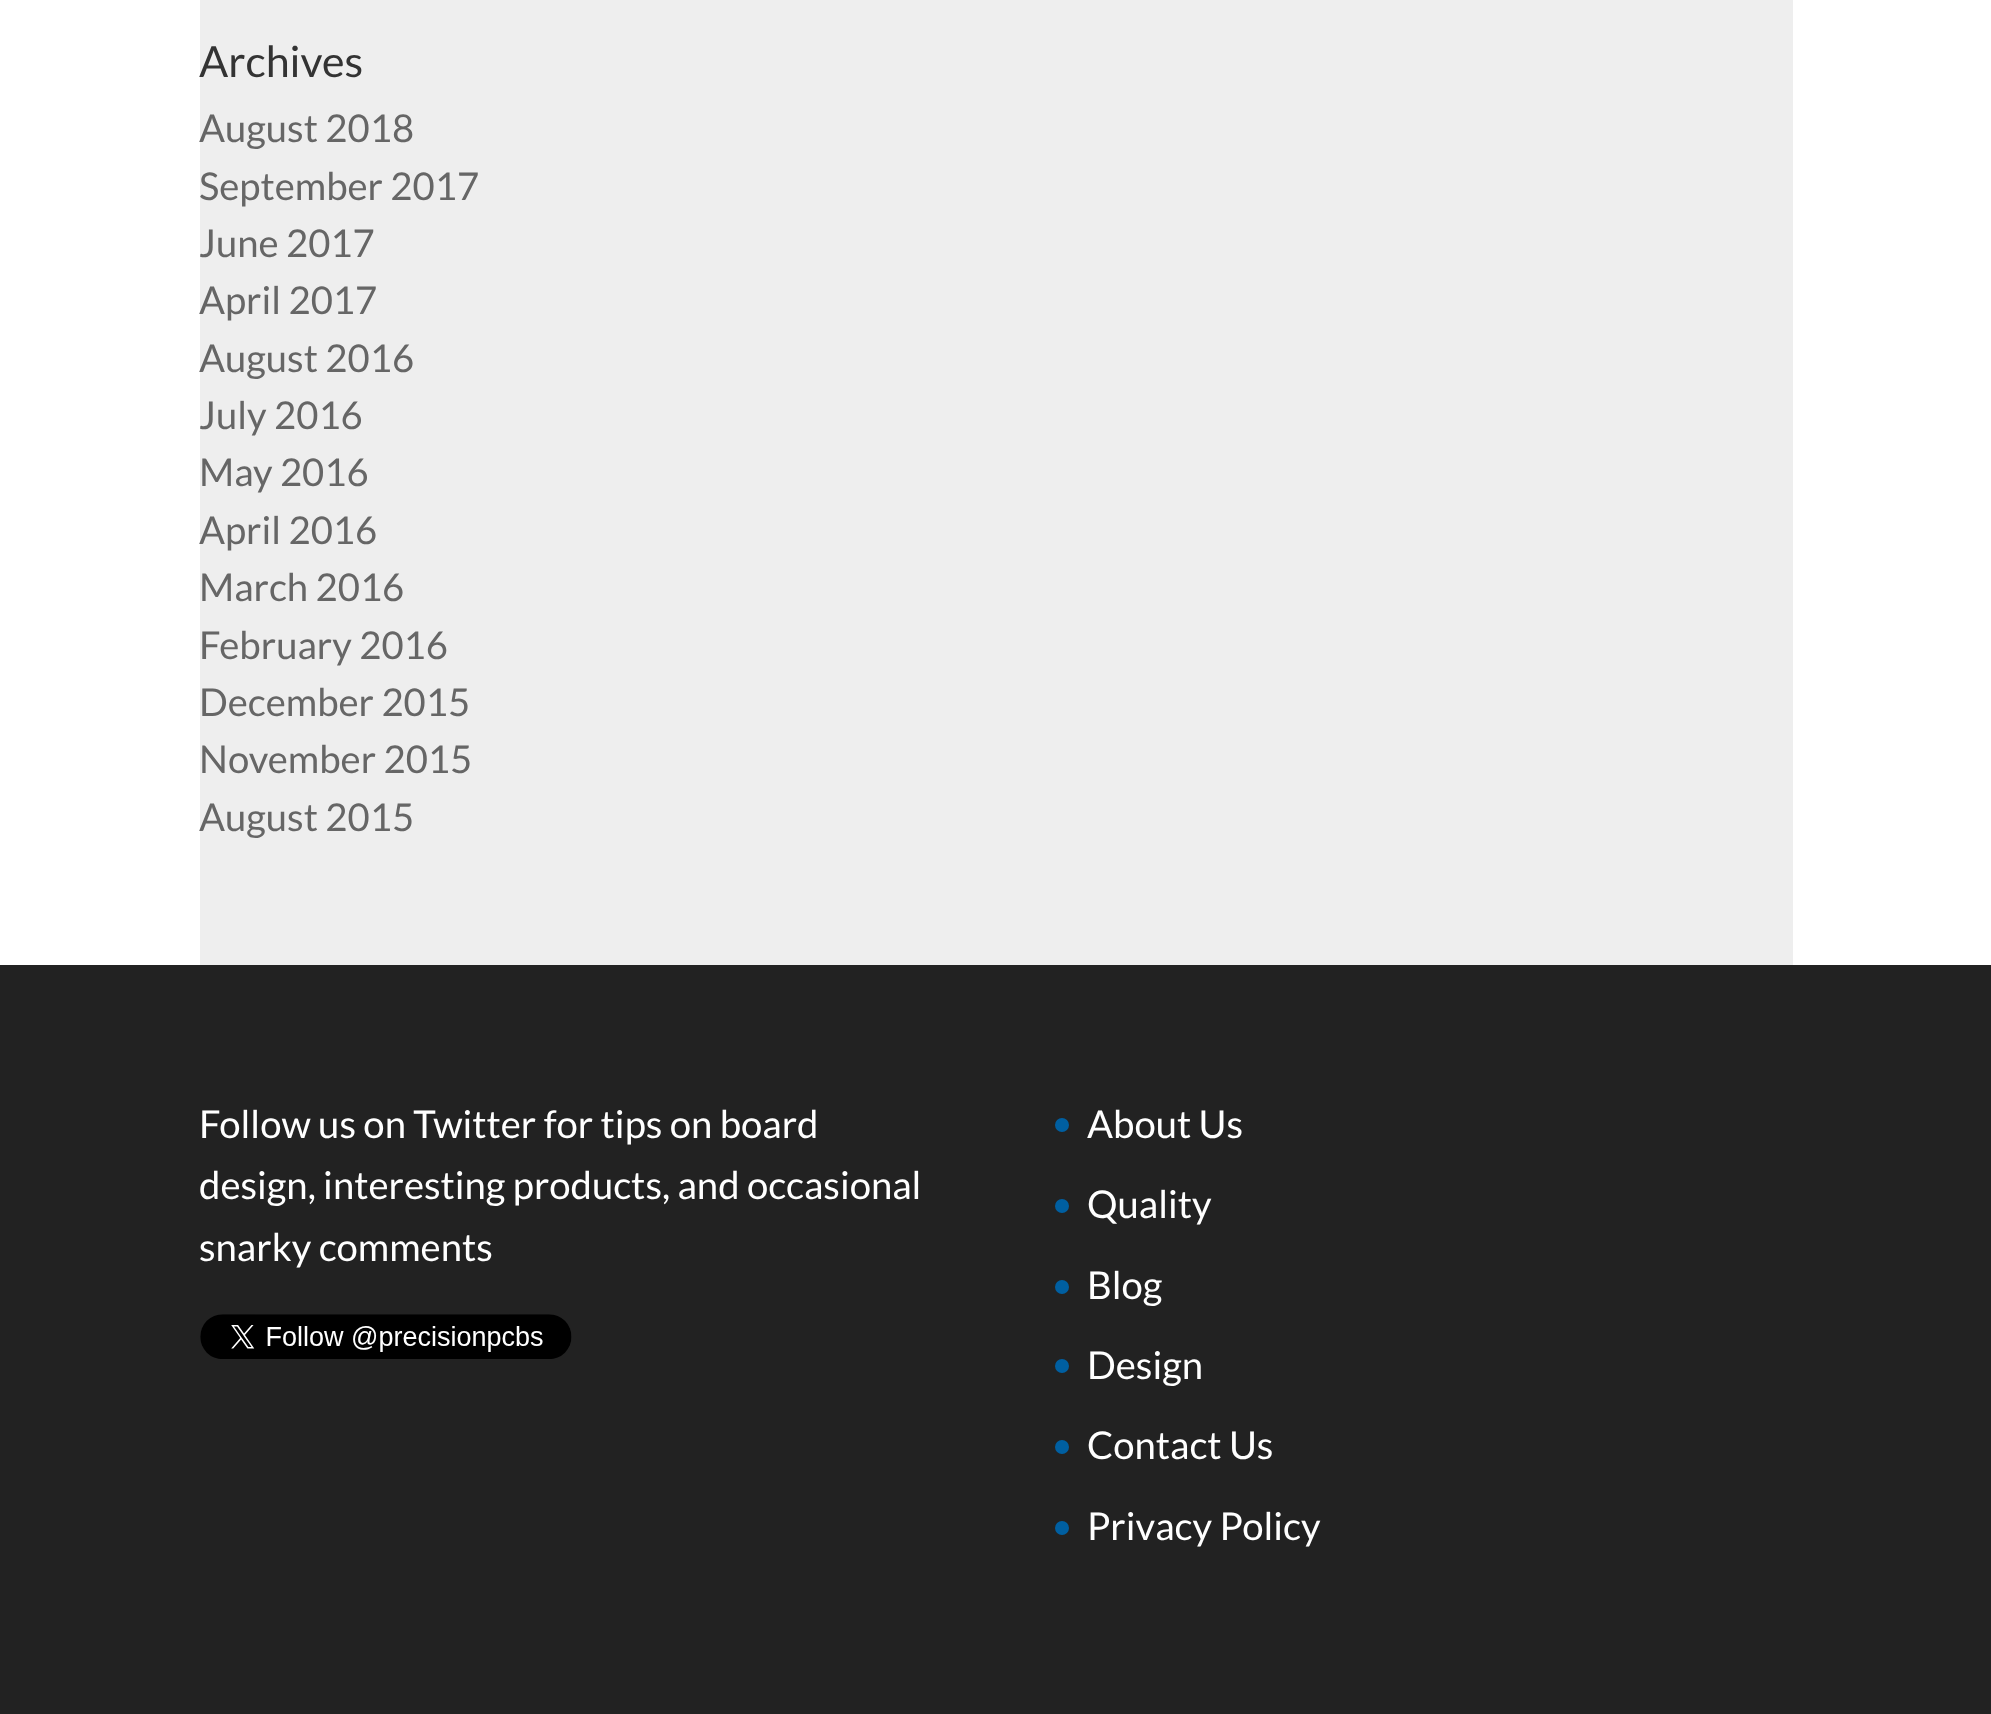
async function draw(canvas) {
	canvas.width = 1991;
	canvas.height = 1714;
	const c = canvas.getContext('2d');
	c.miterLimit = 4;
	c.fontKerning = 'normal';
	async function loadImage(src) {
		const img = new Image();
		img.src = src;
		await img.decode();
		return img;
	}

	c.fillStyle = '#fff';
	c.fillRect(0, 0, 1991, 1714);
	c.fillStyle = '#eee';
	c.fillRect(200, 0, 1593, 965);
	c.font = '43px Lato';
	c.fillStyle = '#333';
	c.fillText('Archives', 199, 77);
	c.font = '38.25px Lato';
	c.fillStyle = '#666';
	for (const [text, x, y] of [
		['August 2018', 199, 142],
		['September 2017', 199, 200],
		['June 2017', 199, 257],
		['April 2017', 199, 314],
		['August 2016', 199, 372],
		['July 2016', 199, 429],
		['May 2016', 199, 486],
		['April 2016', 199, 544],
		['March 2016', 199, 601],
		['February 2016', 199, 659],
		['December 2015', 199, 716],
		['November 2015', 199, 773],
		['August 2015', 199, 831],
	]) {
		c.fillText(text, x, y);
	}
	c.fillStyle = '#222';
	c.fillRect(0, 965, 1991, 749);
	c.fillStyle = '#fff';
	for (const [text, x, y] of [
		['Follow us on Twitter for tips on board', 199, 1138],
		['design, interesting products, and occasional', 199, 1199],
		['snarky comments', 199, 1261],
	]) {
		c.fillText(text, x, y);
	}
	c.drawImage(await loadImage('img1.png'), 200, 1314, 372, 45);
	c.fillStyle = '#005fa1';
	c.beginPath();
	c.arc(1062, 1125, 7, 0, 2 * Math.PI);
	c.fill();
	c.fillStyle = '#fff';
	c.fillText('About Us', 1087, 1138);
	c.fillStyle = '#005fa1';
	c.beginPath();
	c.arc(1062, 1206, 7, 0, 2 * Math.PI);
	c.fill();
	c.fillStyle = '#fff';
	c.fillText('Quality', 1087, 1218);
	c.fillStyle = '#005fa1';
	c.beginPath();
	c.arc(1062, 1287, 7, 0, 2 * Math.PI);
	c.fill();
	c.fillStyle = '#fff';
	c.fillText('Blog', 1087, 1299);
	c.fillStyle = '#005fa1';
	c.beginPath();
	c.arc(1062, 1366, 7, 0, 2 * Math.PI);
	c.fill();
	c.fillStyle = '#fff';
	c.fillText('Design', 1087, 1379);
	c.fillStyle = '#005fa1';
	c.beginPath();
	c.arc(1062, 1447, 7, 0, 2 * Math.PI);
	c.fill();
	c.fillStyle = '#fff';
	c.fillText('Contact Us', 1087, 1459);
	c.fillStyle = '#005fa1';
	c.beginPath();
	c.arc(1062, 1528, 7, 0, 2 * Math.PI);
	c.fill();
	c.fillStyle = '#fff';
	c.fillText('Privacy Policy', 1087, 1540);
}

draw(document.querySelector('canvas'));
